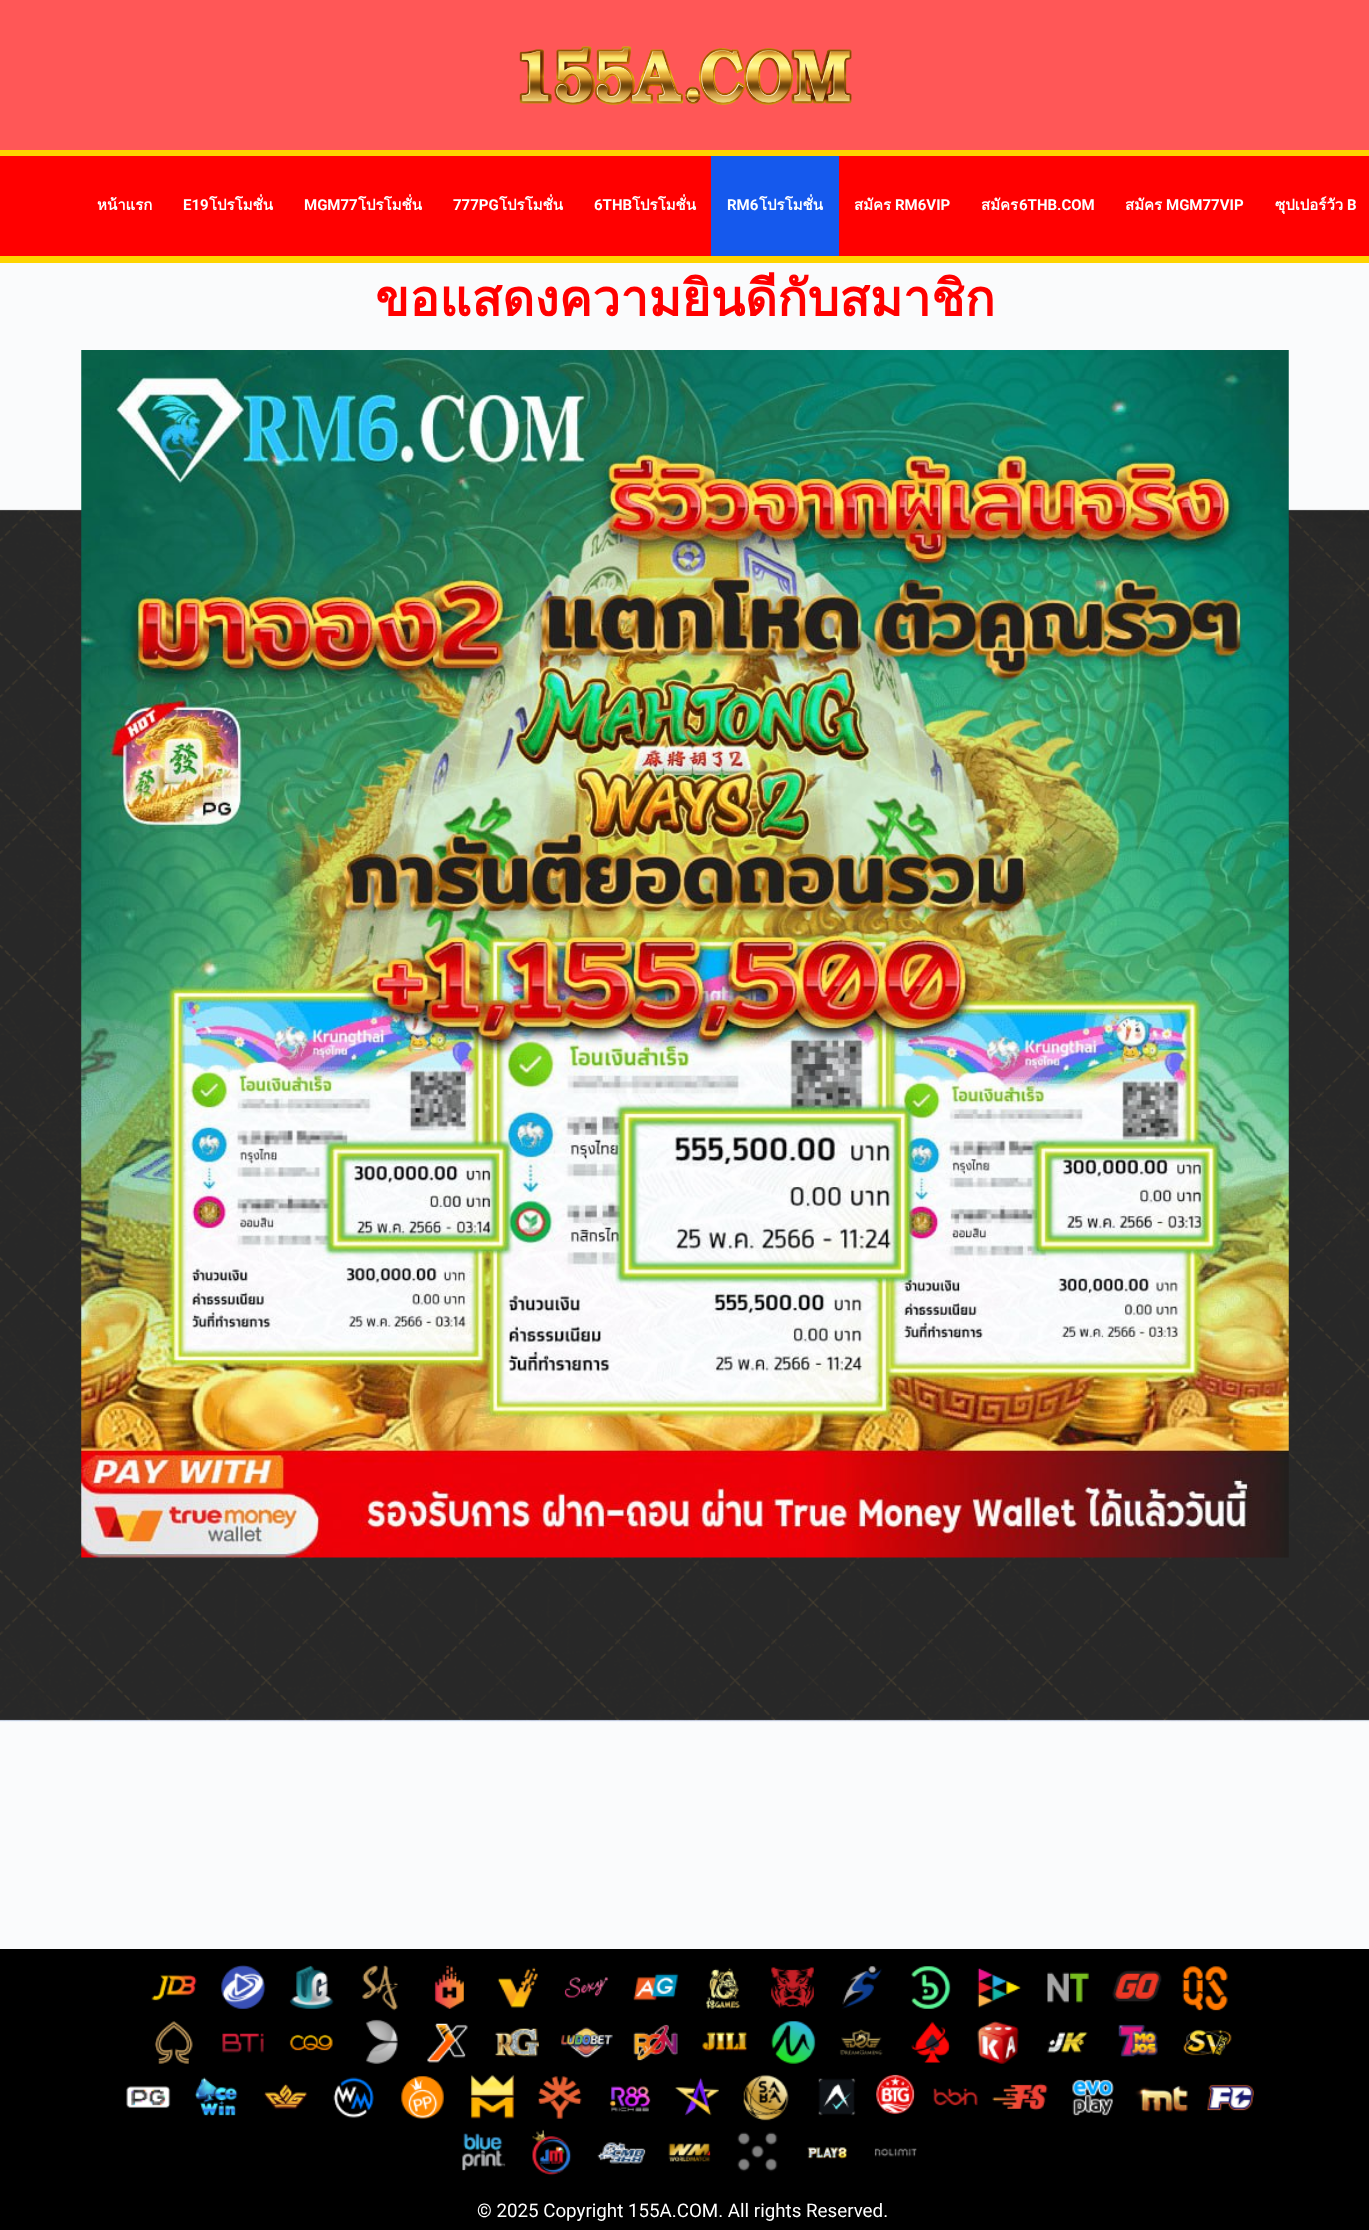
async function draw(canvas) {
	canvas.width = 1369;
	canvas.height = 2230;
	const c = canvas.getContext('2d');
	c.miterLimit = 4;
	c.fontKerning = 'normal';
	async function loadImage(src) {
		const img = new Image();
		img.src = src;
		await img.decode();
		return img;
	}

	c.fillStyle = '#fafbfc';
	c.fillRect(0, 0, 1369, 2230);
	c.drawImage(await loadImage('img1.png'), 0, 509, 1369, 1213);
	c.fillStyle = '#ff5757';
	c.fillRect(0, 0, 1369, 150);
	c.drawImage(await loadImage('img2.png'), 519, 46, 333, 59);
	for (const [x, y, w, h, color] of [
		[0, 156, 1369, 100, '#f00'],
		[0, 150, 1369, 6, '#ffd400'],
		[0, 256, 1369, 7, '#ffd400'],
	]) {
		c.fillStyle = color;
		c.fillRect(x, y, w, h);
	}
	c.font = 'bold 15px Loma';
	c.fillStyle = '#fff';
	c.fillText('หน้าแรก', 97, 210);
	c.font = 'bold 15px Roboto';
	c.fillText('E19', 183, 210);
	c.font = 'bold 15px Loma';
	c.fillText('โปรโมชั่น', 209, 210);
	c.font = 'bold 15px Roboto';
	c.fillText('MGM77', 304, 210);
	c.font = 'bold 15px Loma';
	c.fillText('โปรโมชั่น', 358, 210);
	c.font = 'bold 15px Roboto';
	c.fillText('777PG', 453, 210);
	c.font = 'bold 15px Loma';
	c.fillText('โปรโมชั่น', 499, 210);
	c.font = 'bold 15px Roboto';
	c.fillText('6THB', 594, 210);
	c.font = 'bold 15px Loma';
	c.fillText('โปรโมชั่น', 632, 210);
	c.fillStyle = '#1559ed';
	c.fillRect(711, 156, 128, 100);
	c.font = 'bold 15px Roboto';
	c.fillStyle = '#fff';
	c.fillText('RM6', 727, 210);
	c.font = 'bold 15px Loma';
	c.fillText('โปรโมชั่น', 759, 210);
	c.fillText('สมัคร', 854, 210);
	c.font = 'bold 15px Roboto';
	c.fillText('RM6VIP', 895, 210);
	c.font = 'bold 15px Loma';
	c.fillText('สมัคร', 981, 210);
	c.font = 'bold 15px Roboto';
	c.fillText('6THB.COM', 1019, 210);
	c.font = 'bold 15px Loma';
	c.fillText('สมัคร', 1125, 210);
	c.font = 'bold 15px Roboto';
	c.fillText('MGM77VIP', 1166, 210);
	c.font = 'bold 15px Loma';
	c.fillText('ซุปเปอร์วัว', 1275, 210);
	c.font = 'bold 15px Roboto';
	c.fillText('B', 1347, 210);
	c.font = 'bold 50px Loma';
	c.fillStyle = '#f00';
	c.fillText('ขอแสดงความยินดีกับสมาชิก', 375, 316);
	c.drawImage(await loadImage('img3.png'), 81, 350, 1208, 1208);
	c.fillStyle = '#000';
	c.fillRect(0, 1949, 1369, 281);
	c.drawImage(await loadImage('img4.png'), 126, 1965, 1128, 211);
	c.font = '18.75px Roboto';
	c.fillStyle = '#fff';
	c.fillText('© 2025 Copyright 155A.COM. All rights Reserved.', 477, 2217);
}

draw(document.querySelector('canvas'));
